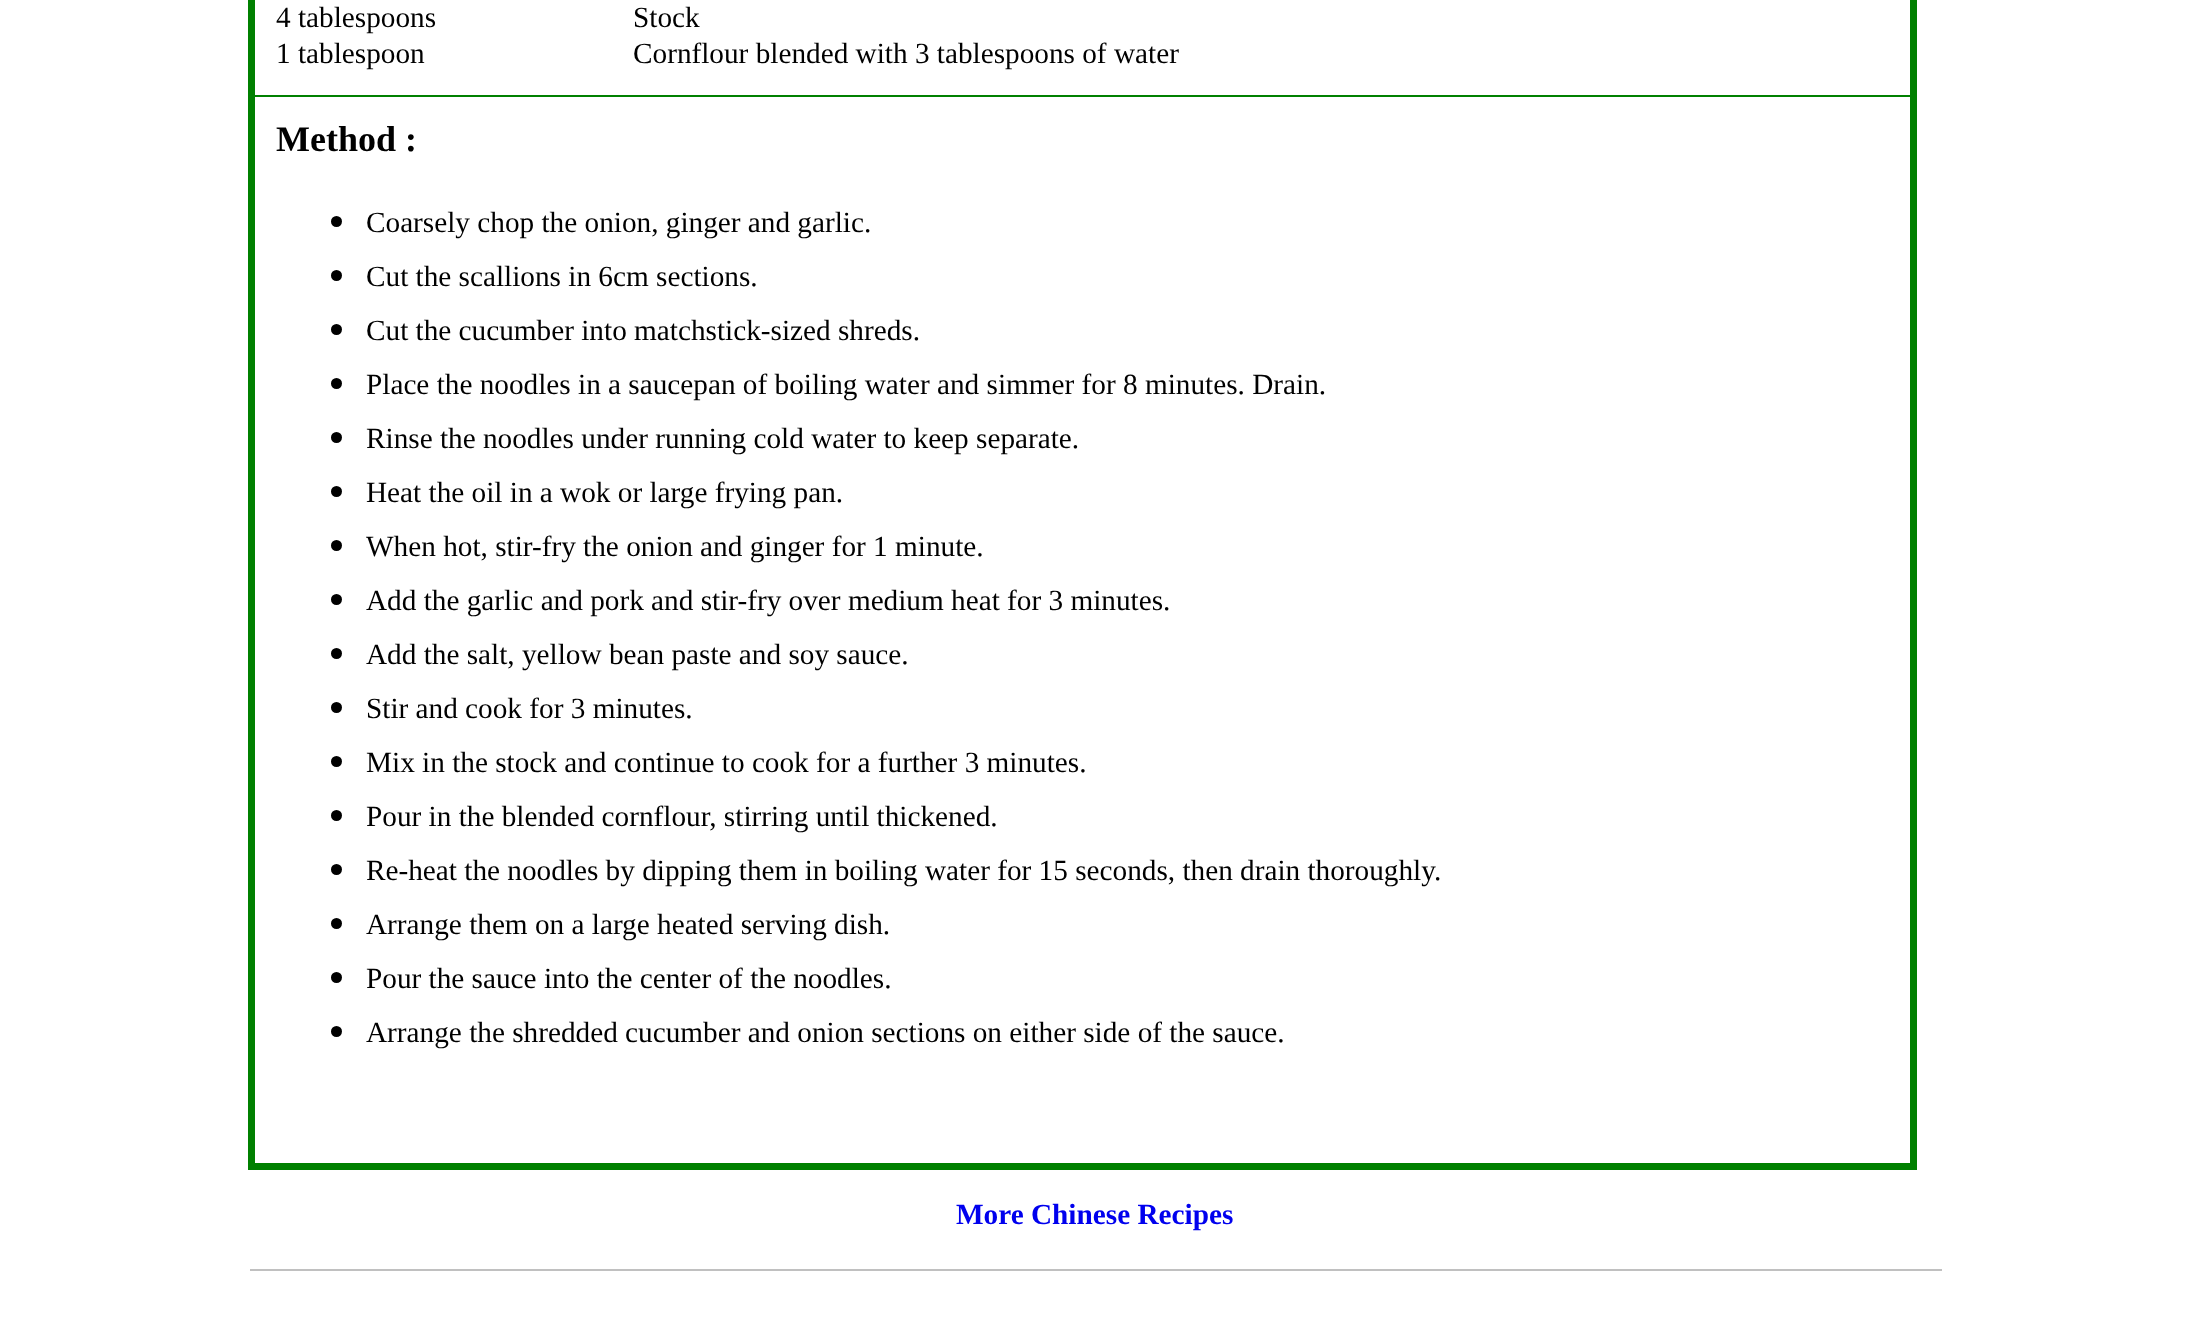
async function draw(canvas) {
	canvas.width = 2189;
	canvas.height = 1328;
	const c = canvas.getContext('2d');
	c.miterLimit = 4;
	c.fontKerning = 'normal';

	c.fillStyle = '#fff';
	c.fillRect(0, 0, 2189, 1328);
	for (const [x, y, w, h, color] of [
		[250, 95, 1665, 2, '#008000'],
		[1910, 0, 7, 1170, '#008000'],
		[248, 1163, 1669, 7, '#008000'],
		[248, 0, 7, 1170, '#008000'],
	]) {
		c.fillStyle = color;
		c.fillRect(x, y, w, h);
	}
	c.font = '29.25px Liberation Serif';
	c.fillStyle = '#000';
	for (const [text, x, y] of [
		['4 tablespoons', 276, 27],
		['1 tablespoon', 276, 63],
		['Stock', 633, 27],
		['Cornflour blended with 3 tablespoons of water', 633, 63],
	]) {
		c.fillText(text, x, y);
	}
	c.font = 'bold 36px Liberation Serif';
	c.fillText('Method :', 276, 151);
	c.beginPath();
	c.arc(336.5, 221.5, 5.5, 0, 2 * Math.PI);
	c.fill();
	c.font = '29.25px Liberation Serif';
	c.fillText('Coarsely chop the onion, ginger and garlic.', 366, 232);
	c.beginPath();
	c.arc(336.5, 275.5, 5.5, 0, 2 * Math.PI);
	c.fill();
	c.fillText('Cut the scallions in 6cm sections.', 366, 286);
	c.beginPath();
	c.arc(336.5, 329.5, 5.5, 0, 2 * Math.PI);
	c.fill();
	c.fillText('Cut the cucumber into matchstick-sized shreds.', 366, 340);
	c.beginPath();
	c.arc(336.5, 383.5, 5.5, 0, 2 * Math.PI);
	c.fill();
	c.fillText('Place the noodles in a saucepan of boiling water and simmer for 8 minutes. Drain.', 366, 394);
	c.beginPath();
	c.arc(336.5, 437.5, 5.5, 0, 2 * Math.PI);
	c.fill();
	c.fillText('Rinse the noodles under running cold water to keep separate.', 366, 448);
	c.beginPath();
	c.arc(336.5, 491.5, 5.5, 0, 2 * Math.PI);
	c.fill();
	c.fillText('Heat the oil in a wok or large frying pan.', 366, 502);
	c.beginPath();
	c.arc(336.5, 545.5, 5.5, 0, 2 * Math.PI);
	c.fill();
	c.fillText('When hot, stir-fry the onion and ginger for 1 minute.', 366, 556);
	c.beginPath();
	c.arc(336.5, 599.5, 5.5, 0, 2 * Math.PI);
	c.fill();
	c.fillText('Add the garlic and pork and stir-fry over medium heat for 3 minutes.', 366, 610);
	c.beginPath();
	c.arc(336.5, 653.5, 5.5, 0, 2 * Math.PI);
	c.fill();
	c.fillText('Add the salt, yellow bean paste and soy sauce.', 366, 664);
	c.beginPath();
	c.arc(336.5, 707.5, 5.5, 0, 2 * Math.PI);
	c.fill();
	c.fillText('Stir and cook for 3 minutes.', 366, 718);
	c.beginPath();
	c.arc(336.5, 761.5, 5.5, 0, 2 * Math.PI);
	c.fill();
	c.fillText('Mix in the stock and continue to cook for a further 3 minutes.', 366, 772);
	c.beginPath();
	c.arc(336.5, 815.5, 5.5, 0, 2 * Math.PI);
	c.fill();
	c.fillText('Pour in the blended cornflour, stirring until thickened.', 366, 826);
	c.beginPath();
	c.arc(336.5, 869.5, 5.5, 0, 2 * Math.PI);
	c.fill();
	c.fillText('Re-heat the noodles by dipping them in boiling water for 15 seconds, then drain thoroughly.', 366, 880);
	c.beginPath();
	c.arc(336.5, 923.5, 5.5, 0, 2 * Math.PI);
	c.fill();
	c.fillText('Arrange them on a large heated serving dish.', 366, 934);
	c.beginPath();
	c.arc(336.5, 977.5, 5.5, 0, 2 * Math.PI);
	c.fill();
	c.fillText('Pour the sauce into the center of the noodles.', 366, 988);
	c.beginPath();
	c.arc(336.5, 1031.5, 5.5, 0, 2 * Math.PI);
	c.fill();
	c.fillText('Arrange the shredded cucumber and onion sections on either side of the sauce.', 366, 1042);
	c.font = 'bold 29.25px Liberation Serif';
	c.fillStyle = '#00e';
	c.fillText('More Chinese Recipes', 956, 1224);
	c.fillStyle = '#c0c0c0';
	c.fillRect(250, 1269, 1692, 2);
}

draw(document.querySelector('canvas'));
